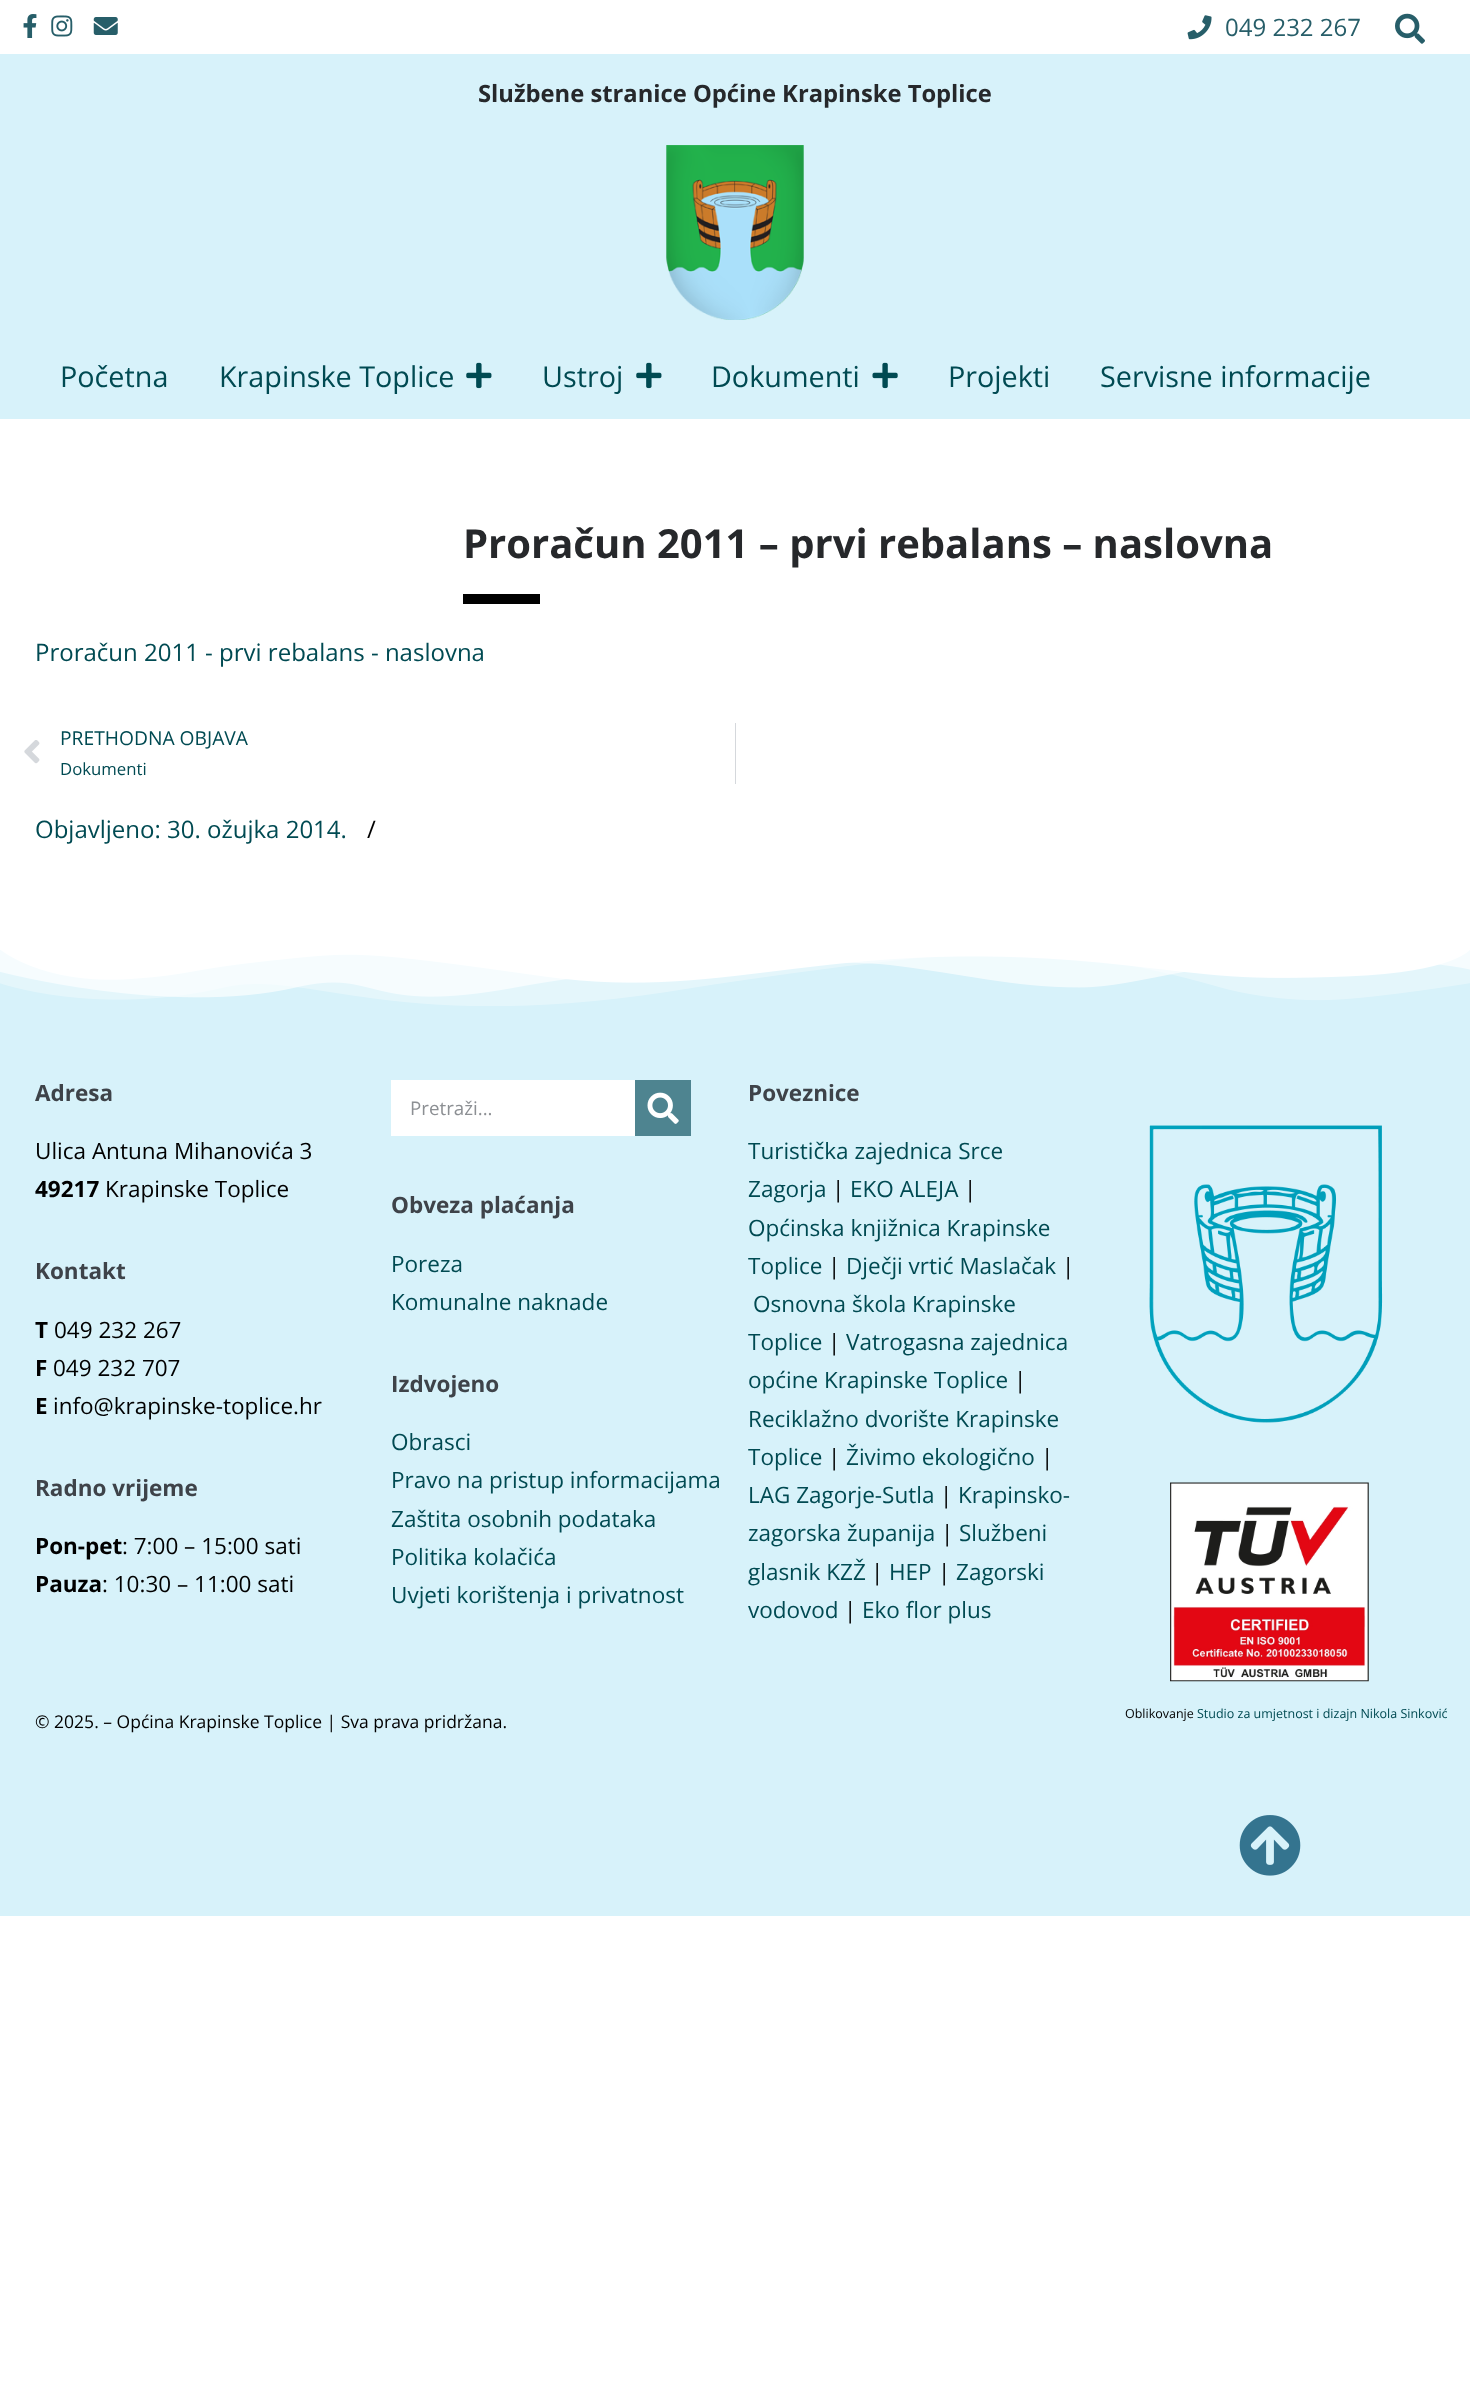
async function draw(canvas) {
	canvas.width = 1470;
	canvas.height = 2391;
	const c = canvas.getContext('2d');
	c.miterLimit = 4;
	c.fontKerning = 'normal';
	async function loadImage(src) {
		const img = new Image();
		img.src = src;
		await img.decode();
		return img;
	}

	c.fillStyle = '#fff';
	c.fillRect(0, 0, 1470, 2391);
	c.drawImage(await loadImage('img1.png'), 23, 14, 14, 24);
	c.drawImage(await loadImage('img2.png'), 51, 15, 22, 22);
	c.drawImage(await loadImage('img3.png'), 93, 17, 25, 18);
	c.drawImage(await loadImage('img4.png'), 1187, 15, 25, 25);
	c.font = '24px Open Sans';
	c.fillStyle = '#275e69';
	c.fillText('049 232 267', 1225, 36);
	c.drawImage(await loadImage('img5.png'), 1395, 13, 30, 31);
	c.fillStyle = '#d7f2fa';
	c.fillRect(0, 54, 1470, 365);
	c.font = 'bold 23.75px Open Sans';
	c.fillStyle = '#26282b';
	c.fillText('Službene stranice Općine Krapinske Toplice', 478, 102);
	c.drawImage(await loadImage('img6.png'), 666, 145, 138, 175);
	c.font = '28.75px Open Sans';
	c.fillStyle = '#004a52';
	c.fillText('Početna', 60, 387);
	c.fillText('Krapinske Toplice', 219, 387);
	c.drawImage(await loadImage('img7.png'), 466, 362, 26, 27);
	c.fillText('Ustroj', 542, 387);
	c.drawImage(await loadImage('img7.png'), 636, 362, 26, 27);
	c.fillText('Dokumenti', 711, 387);
	c.drawImage(await loadImage('img8.png'), 872, 362, 26, 27);
	c.fillText('Projekti', 948, 387);
	c.fillText('Servisne informacije', 1100, 387);
	c.font = 'bold 40px Open Sans';
	c.fillStyle = '#26282b';
	c.fillText('Proračun 2011 – prvi rebalans – naslovna', 463, 558);
	c.fillStyle = '#000';
	c.fillRect(463, 594, 77, 10);
	c.font = '24px Open Sans';
	c.fillStyle = '#004a52';
	c.fillText('Proračun 2011 - prvi rebalans - naslovna', 35, 661);
	c.drawImage(await loadImage('img9.png'), 24, 740, 16, 24);
	c.font = '19.25px Open Sans';
	c.fillText('PRETHODNA OBJAVA', 60, 745);
	c.font = '16.75px Open Sans';
	c.fillText('Dokumenti', 60, 775);
	c.fillStyle = '#d5d8dc';
	c.fillRect(735, 723, 1, 61);
	c.font = '24px Open Sans';
	c.fillStyle = '#004a52';
	c.fillText('Objavljeno: 30. ožujka 2014.', 35, 838);
	c.fillStyle = '#000';
	c.fillText('/', 367, 838);
	c.fillStyle = '#d7f2fa';
	c.fillRect(0, 950, 1470, 824);
	c.drawImage(await loadImage('img10.png'), 0, 950, 1470, 56);
	c.font = 'bold 22.5px Open Sans';
	c.fillStyle = '#3e4349';
	c.fillText('Adresa', 35, 1101);
	c.font = '22.5px Open Sans';
	c.fillStyle = '#000';
	c.fillText('Ulica Antuna Mihanovića 3', 35, 1159);
	c.font = 'bold 22.5px Open Sans';
	c.fillText('49217', 35, 1197);
	c.font = '22.5px Open Sans';
	c.fillText('Krapinske Toplice', 105, 1197);
	c.font = 'bold 22.5px Open Sans';
	c.fillStyle = '#3e4349';
	c.fillText('Kontakt', 35, 1279);
	c.fillStyle = '#000';
	c.fillText('T', 35, 1338);
	c.font = '22.5px Open Sans';
	c.fillText('049 232 267', 54, 1338);
	c.font = 'bold 22.5px Open Sans';
	c.fillText('F', 35, 1376);
	c.font = '22.5px Open Sans';
	c.fillText('049 232 707', 53, 1376);
	c.font = 'bold 22.5px Open Sans';
	c.fillText('E', 35, 1414);
	c.font = '22.5px Open Sans';
	c.fillText('info@krapinske-toplice.hr', 53, 1414);
	c.font = 'bold 22.5px Open Sans';
	c.fillStyle = '#3e4349';
	c.fillText('Radno vrijeme', 35, 1496);
	c.fillStyle = '#000';
	c.fillText('Pon-pet', 35, 1554);
	c.font = '22.5px Open Sans';
	c.fillText(': 7:00 – 15:00 sati', 122, 1554);
	c.font = 'bold 22.5px Open Sans';
	c.fillText('Pauza', 35, 1592);
	c.font = '22.5px Open Sans';
	c.fillText(': 10:30 – 11:00 sati', 102, 1592);
	c.fillStyle = '#fff';
	c.fillRect(391, 1080, 244, 56);
	c.font = '18.75px Open Sans';
	c.fillStyle = '#8c8f93';
	c.fillText('Pretraži...', 410, 1115);
	c.fillStyle = '#4e8490';
	c.fillRect(635, 1080, 56, 56);
	c.drawImage(await loadImage('img11.png'), 647, 1092, 32, 32);
	c.font = 'bold 22.5px Open Sans';
	c.fillStyle = '#3e4349';
	c.fillText('Obveza plaćanja', 391, 1213);
	c.font = '22.5px Open Sans';
	c.fillStyle = '#004a52';
	c.fillText('Poreza', 391, 1272);
	c.fillText('Komunalne naknade', 391, 1310);
	c.font = 'bold 22.5px Open Sans';
	c.fillStyle = '#3e4349';
	c.fillText('Izdvojeno', 391, 1392);
	c.font = '22.5px Open Sans';
	c.fillStyle = '#004a52';
	for (const [text, x, y] of [
		['Obrasci', 391, 1450],
		['Pravo na pristup informacijama', 391, 1488],
		['Zaštita osobnih podataka', 391, 1527],
		['Politika kolačića', 391, 1565],
		['Uvjeti korištenja i privatnost', 391, 1603],
	]) {
		c.fillText(text, x, y);
	}
	c.font = 'bold 22.5px Open Sans';
	c.fillStyle = '#3e4349';
	c.fillText('Poveznice', 748, 1101);
	c.font = '22.5px Open Sans';
	c.fillStyle = '#004a52';
	c.fillText('Turistička zajednica Srce', 748, 1159);
	c.fillText('Zagorja', 748, 1197);
	c.fillStyle = '#000';
	c.fillText('|', 832, 1197);
	c.fillStyle = '#004a52';
	c.fillText('EKO ALEJA', 850, 1197);
	c.fillStyle = '#000';
	c.fillText('|', 964, 1197);
	c.fillStyle = '#004a52';
	c.fillText('Općinska knjižnica Krapinske', 748, 1236);
	c.fillText('Toplice', 748, 1274);
	c.fillStyle = '#000';
	c.fillText('|', 828, 1274);
	c.fillStyle = '#004a52';
	c.fillText('Dječji vrtić Maslačak', 846, 1274);
	c.fillStyle = '#000';
	c.fillText('|', 1062, 1274);
	c.fillStyle = '#004a52';
	c.fillText('Osnovna škola Krapinske', 753, 1312);
	c.fillText('Toplice', 748, 1350);
	c.fillStyle = '#000';
	c.fillText('|', 828, 1350);
	c.fillStyle = '#004a52';
	c.fillText('Vatrogasna zajednica', 846, 1350);
	c.fillText('općine Krapinske Toplice', 748, 1388);
	c.fillStyle = '#000';
	c.fillText('|', 1014, 1388);
	c.fillStyle = '#004a52';
	c.fillText('Reciklažno dvorište Krapinske', 748, 1427);
	c.fillText('Toplice', 748, 1465);
	c.fillStyle = '#000';
	c.fillText('|', 828, 1465);
	c.fillStyle = '#004a52';
	c.fillText('Živimo ekologično', 846, 1465);
	c.fillStyle = '#000';
	c.fillText('|', 1041, 1465);
	c.fillStyle = '#004a52';
	c.fillText('LAG Zagorje-Sutla', 748, 1503);
	c.fillStyle = '#000';
	c.fillText('|', 940, 1503);
	c.fillStyle = '#004a52';
	c.fillText('Krapinsko-', 958, 1503);
	c.fillText('zagorska županija', 748, 1541);
	c.fillStyle = '#000';
	c.fillText('|', 941, 1541);
	c.fillStyle = '#004a52';
	c.fillText('Službeni', 959, 1541);
	c.fillText('glasnik KZŽ', 748, 1580);
	c.fillStyle = '#000';
	c.fillText('|', 871, 1580);
	c.fillStyle = '#004a52';
	c.fillText('HEP', 889, 1580);
	c.fillStyle = '#000';
	c.fillText('|', 938, 1580);
	c.fillStyle = '#004a52';
	c.fillText('Zagorski', 956, 1580);
	c.fillText('vodovod', 748, 1618);
	c.fillStyle = '#000';
	c.fillText('|', 844, 1618);
	c.fillStyle = '#004a52';
	c.fillText('Eko flor plus', 862, 1618);
	c.drawImage(await loadImage('img12.png'), 1149, 1125, 234, 298);
	c.drawImage(await loadImage('img13.png'), 1170, 1482, 199, 200);
	c.font = '17.5px Open Sans';
	c.fillStyle = '#000';
	c.fillText('© 2025. – Općina Krapinske Toplice | Sva prava pridržana.', 35, 1728);
	c.font = '12.5px Open Sans';
	c.fillText('Oblikovanje', 1125, 1718);
	c.fillStyle = '#004a52';
	c.fillText('Studio za umjetnost i dizajn Nikola Sinković', 1197, 1718);
	c.fillStyle = '#d7f2fa';
	c.fillRect(0, 1774, 1470, 142);
	c.drawImage(await loadImage('img14.png'), 1239, 1815, 62, 61);
}

draw(document.querySelector('canvas'));
